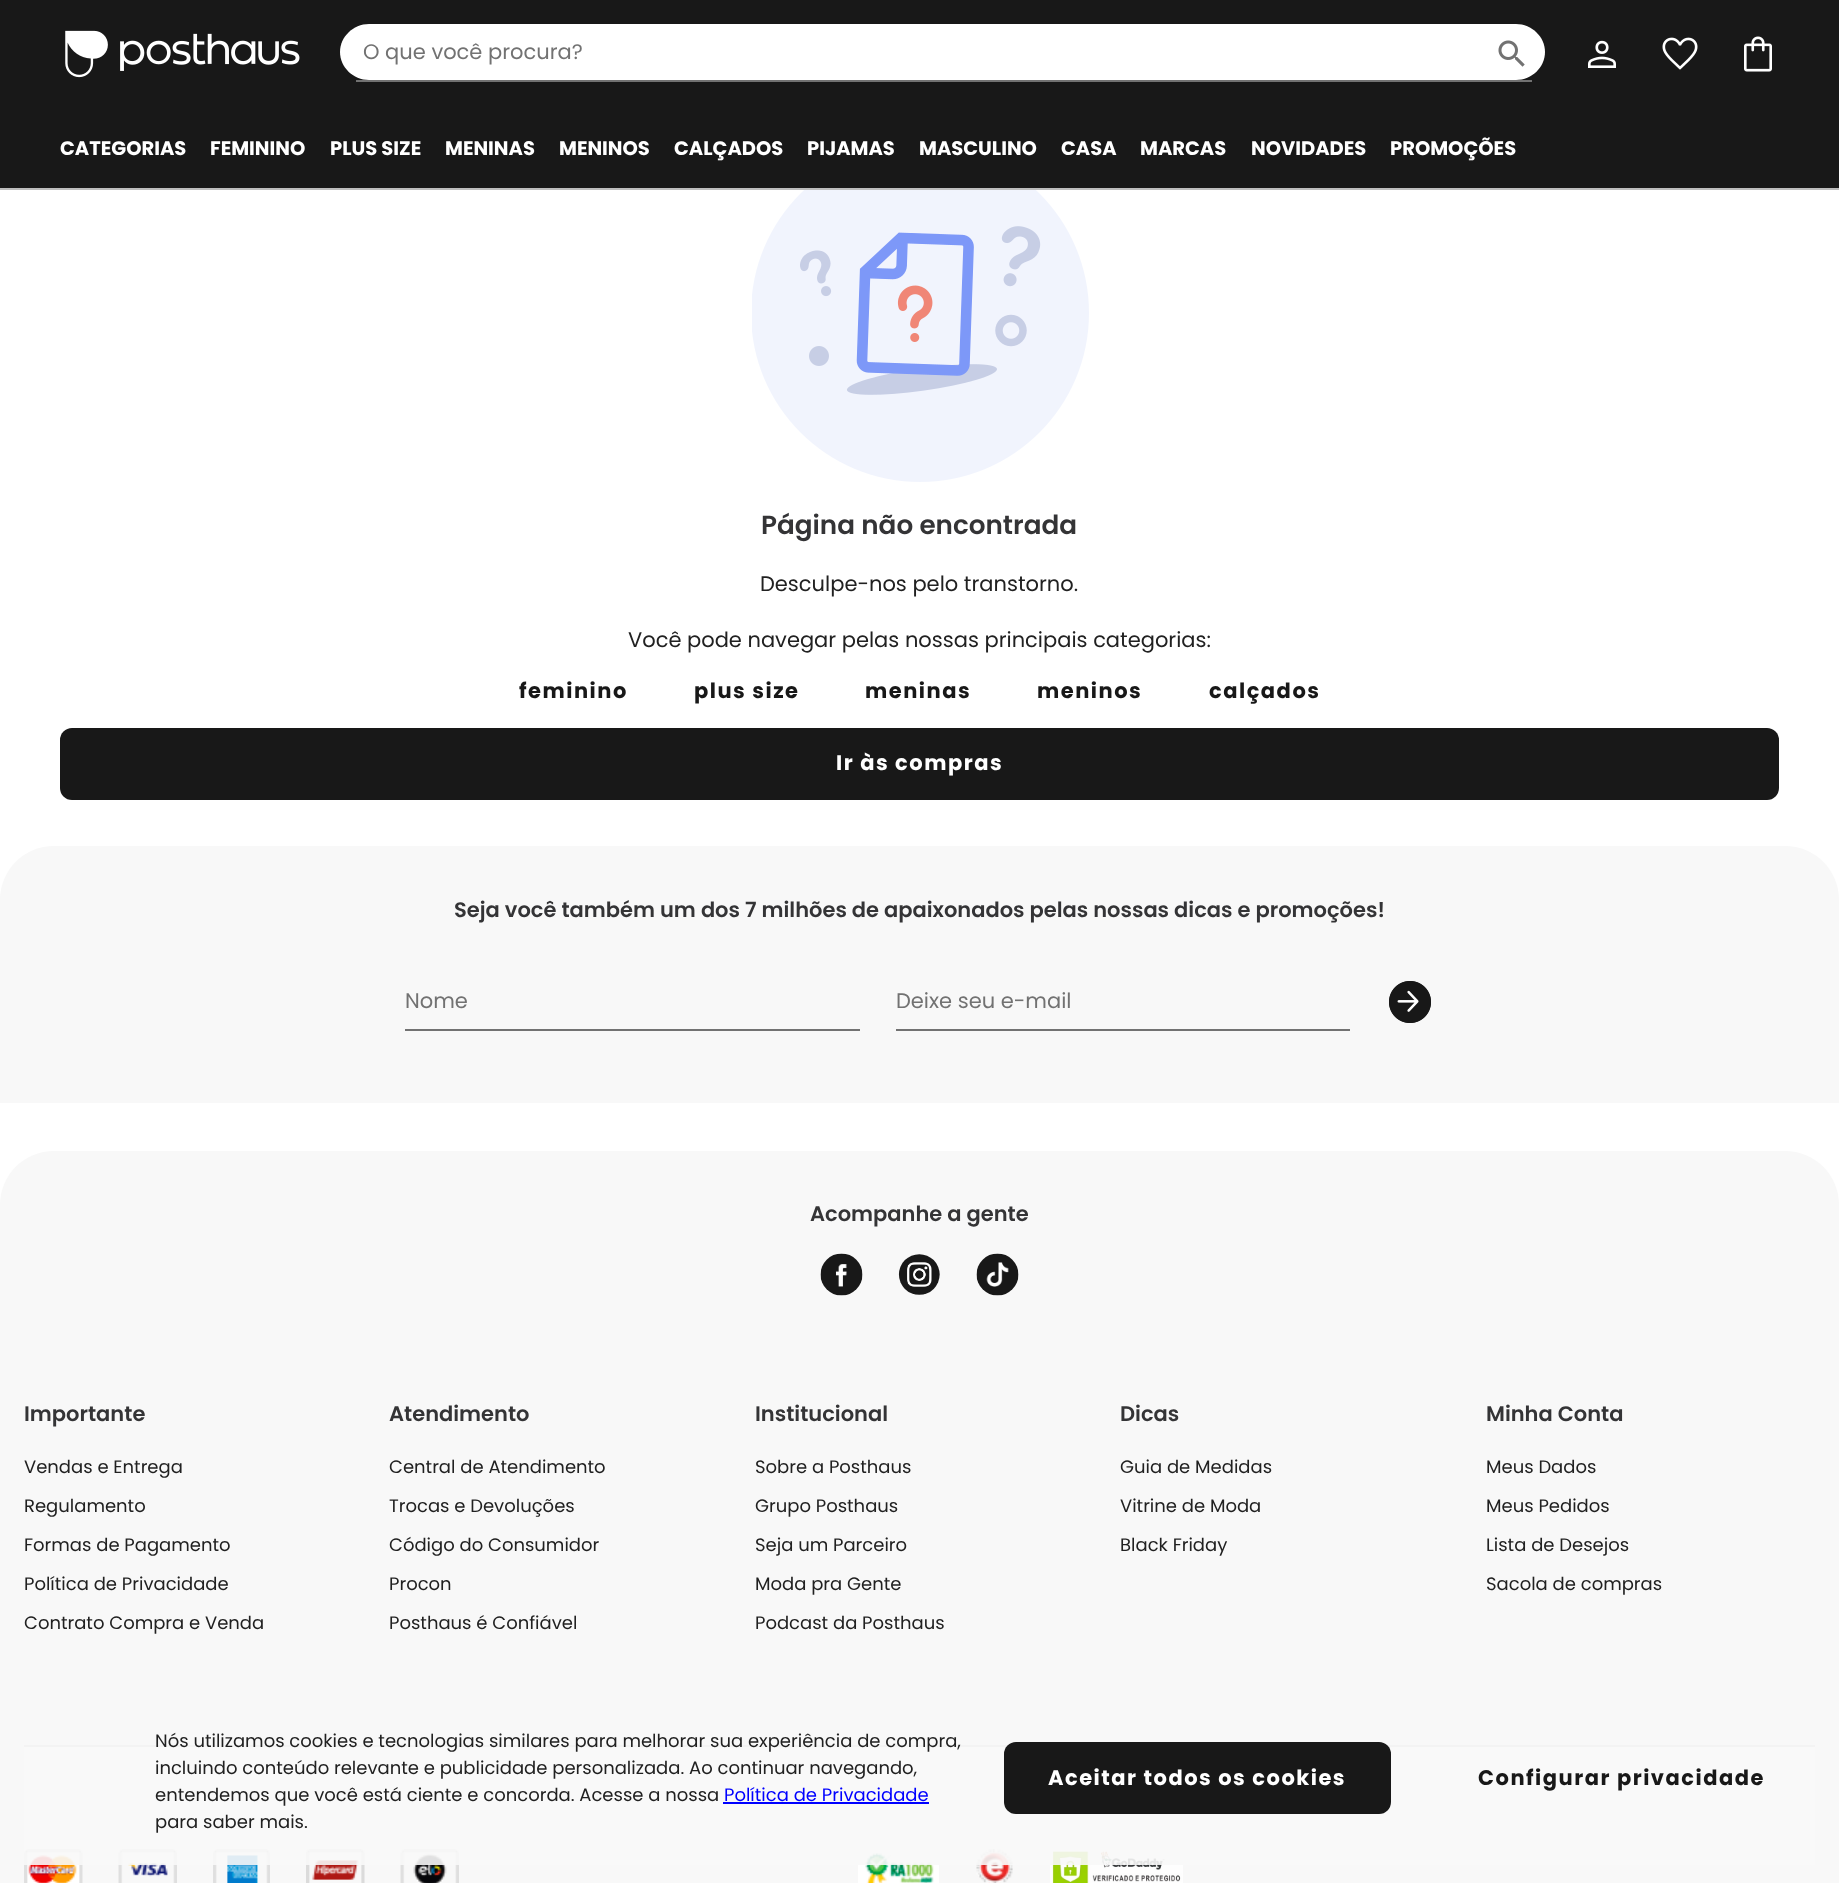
async function draw(canvas) {
	canvas.width = 1839;
	canvas.height = 1883;
	const c = canvas.getContext('2d');
	c.miterLimit = 4;
	c.fontKerning = 'normal';
	async function loadImage(src) {
		const img = new Image();
		img.src = src;
		await img.decode();
		return img;
	}

	c.fillStyle = '#fff';
	c.fillRect(0, 0, 1839, 1883);
	c.fillStyle = '#181818';
	c.fillRect(0, 0, 1839, 188);
	c.drawImage(await loadImage('img1.png'), 65, 30, 235, 48);
	c.fillStyle = '#fff';
	c.beginPath();
	c.moveTo(369, 24);
	c.lineTo(1516, 24);
	c.bezierCurveTo(1532, 24, 1545, 37, 1545, 52);
	c.bezierCurveTo(1545, 67, 1532, 80, 1516, 80);
	c.lineTo(369, 80);
	c.bezierCurveTo(353, 80, 340, 67, 340, 52);
	c.bezierCurveTo(340, 37, 353, 24, 369, 24);
	c.closePath();
	c.fill();
	c.fillStyle = '#727272';
	c.fillRect(356, 80, 1176, 2);
	c.font = '21px Poppins';
	c.fillText('O que você procura?', 363, 59);
	c.drawImage(await loadImage('img2.png'), 1498, 40, 27, 27);
	c.drawImage(await loadImage('img3.png'), 1588, 40, 28, 28);
	c.drawImage(await loadImage('img4.png'), 1662, 37, 36, 33);
	c.drawImage(await loadImage('img5.png'), 1744, 36, 28, 36);
	c.fillStyle = '#bdbdbd';
	c.fillRect(0, 188, 1839, 2);
	c.font = 'bold 19.5px Poppins';
	c.fillStyle = '#fff';
	for (const [text, x, y] of [
		['CATEGORIAS', 60, 155],
		['FEMININO', 210, 155],
		['PLUS SIZE', 330, 155],
		['MENINAS', 445, 155],
		['MENINOS', 559, 155],
		['CALÇADOS', 674, 155],
		['PIJAMAS', 807, 155],
		['MASCULINO', 919, 155],
		['CASA', 1061, 155],
		['MARCAS', 1140, 155],
		['NOVIDADES', 1251, 155],
		['PROMOÇÕES', 1390, 155],
	]) {
		c.fillText(text, x, y);
	}
	c.drawImage(await loadImage('img6.png'), 752, 190, 337, 292);
	c.font = '600 26.25px Poppins';
	c.fillStyle = '#343436';
	c.fillText('Página não encontrada', 761, 534);
	c.font = '21px Poppins';
	c.fillStyle = '#212121';
	c.fillText('Desculpe-nos pelo transtorno.', 760, 591);
	c.fillText('Você pode navegar pelas nossas principais categorias:', 628, 647);
	c.letterSpacing = '1.5px';
	c.font = 'bold 21px Poppins';
	c.fillStyle = '#181818';
	for (const [text, x, y] of [
		['feminino', 519, 698],
		['plus size', 694, 698],
		['meninas', 865, 698],
		['meninos', 1037, 698],
		['calçados', 1209, 698],
	]) {
		c.fillText(text, x, y);
	}
	c.beginPath();
	c.roundRect(60, 728, 1719, 72, 12);
	c.fill();
	c.fillStyle = '#fff';
	c.fillText('Ir às compras', 836, 770);
	c.fillStyle = '#f8f8f8';
	c.beginPath();
	c.roundRect(0, 846, 1839, 257, [54, 54, 0, 0]);
	c.fill();
	c.letterSpacing = '0px';
	c.font = '600 21px Poppins';
	c.fillStyle = '#343436';
	c.fillText('Seja você também um dos 7 milhões de apaixonados pelas nossas dicas e promoções!', 454, 917);
	c.font = '21px Poppins';
	c.fillStyle = '#727272';
	c.fillText('Nome', 405, 1008);
	c.fillRect(405, 1029, 455, 2);
	c.fillText('Deixe seu e-mail', 896, 1008);
	c.fillRect(896, 1029, 454, 2);
	c.drawImage(await loadImage('img7.png'), 1389, 981, 42, 42);
	c.fillStyle = '#f8f8f8';
	c.beginPath();
	c.moveTo(54, 1151);
	c.lineTo(1785, 1151);
	c.bezierCurveTo(1815, 1151, 1839, 1175, 1839, 1205);
	c.lineTo(1839, 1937);
	c.lineTo(0, 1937);
	c.lineTo(0, 1205);
	c.bezierCurveTo(0, 1175, 24, 1151, 54, 1151);
	c.closePath();
	c.fill();
	c.font = '600 21px Poppins';
	c.fillStyle = '#343436';
	c.fillText('Acompanhe a gente', 810, 1221);
	c.drawImage(await loadImage('img8.png'), 820, 1253, 43, 43);
	c.drawImage(await loadImage('img9.png'), 898, 1254, 42, 41);
	c.drawImage(await loadImage('img10.png'), 976, 1253, 43, 43);
	c.fillText('Importante', 24, 1421);
	c.font = '18px Poppins';
	c.fillStyle = '#212121';
	for (const [text, x, y] of [
		['Vendas e Entrega', 24, 1473],
		['Regulamento', 24, 1512],
		['Formas de Pagamento', 24, 1551],
		['Política de Privacidade', 24, 1590],
		['Contrato Compra e Venda', 24, 1629],
	]) {
		c.fillText(text, x, y);
	}
	c.font = '600 21px Poppins';
	c.fillStyle = '#343436';
	c.fillText('Atendimento', 389, 1421);
	c.font = '18px Poppins';
	c.fillStyle = '#212121';
	for (const [text, x, y] of [
		['Central de Atendimento', 389, 1473],
		['Trocas e Devoluções', 389, 1512],
		['Código do Consumidor', 389, 1551],
		['Procon', 389, 1590],
		['Posthaus é Confiável', 389, 1629],
	]) {
		c.fillText(text, x, y);
	}
	c.font = '600 21px Poppins';
	c.fillStyle = '#343436';
	c.fillText('Institucional', 755, 1421);
	c.font = '18px Poppins';
	c.fillStyle = '#212121';
	for (const [text, x, y] of [
		['Sobre a Posthaus', 755, 1473],
		['Grupo Posthaus', 755, 1512],
		['Seja um Parceiro', 755, 1551],
		['Moda pra Gente', 755, 1590],
		['Podcast da Posthaus', 755, 1629],
	]) {
		c.fillText(text, x, y);
	}
	c.font = '600 21px Poppins';
	c.fillStyle = '#343436';
	c.fillText('Dicas', 1120, 1421);
	c.font = '18px Poppins';
	c.fillStyle = '#212121';
	for (const [text, x, y] of [
		['Guia de Medidas', 1120, 1473],
		['Vitrine de Moda', 1120, 1512],
		['Black Friday', 1120, 1551],
	]) {
		c.fillText(text, x, y);
	}
	c.font = '600 21px Poppins';
	c.fillStyle = '#343436';
	c.fillText('Minha Conta', 1486, 1421);
	c.font = '18px Poppins';
	c.fillStyle = '#212121';
	for (const [text, x, y] of [
		['Meus Dados', 1486, 1473],
		['Meus Pedidos', 1486, 1512],
		['Lista de Desejos', 1486, 1551],
		['Sacola de compras', 1486, 1590],
	]) {
		c.fillText(text, x, y);
	}
	c.fillStyle = '#bdbdbd';
	c.fillRect(24, 1745, 1791, 2);
	c.drawImage(await loadImage('img11.png'), 24, 1849, 59, 34);
	c.drawImage(await loadImage('img12.png'), 118, 1849, 59, 34);
	c.drawImage(await loadImage('img13.png'), 213, 1849, 57, 34);
	c.drawImage(await loadImage('img14.png'), 306, 1849, 59, 34);
	c.drawImage(await loadImage('img15.png'), 400, 1849, 59, 34);
	c.drawImage(await loadImage('img16.png'), 858, 1849, 81, 34);
	c.drawImage(await loadImage('img17.png'), 976, 1849, 37, 34);
	c.drawImage(await loadImage('img18.png'), 1050, 1849, 133, 34);
	c.fillStyle = '#f8f8f8e6';
	c.fillRect(24, 1745, 1791, 120);
	c.fillStyle = '#212121';
	for (const [text, x, y] of [
		['Nós utilizamos cookies e tecnologias similares para melhorar sua experiência de compra,', 155, 1747],
		['incluindo conteúdo relevante e publicidade personalizada. Ao continuar navegando,', 155, 1774],
		['entendemos que você está ciente e concorda. Acesse a nossa', 155, 1801],
	]) {
		c.fillText(text, x, y);
	}
	c.fillStyle = '#00f';
	c.fillText('Política de Privacidade', 724, 1801);
	c.fillRect(723, 1802, 206, 2);
	c.fillStyle = '#212121';
	c.fillText('para saber mais.', 155, 1828);
	c.fillStyle = '#181818';
	c.beginPath();
	c.roundRect(1004, 1742, 387, 72, 12);
	c.fill();
	c.letterSpacing = '1.5px';
	c.font = 'bold 21px Poppins';
	c.fillStyle = '#fff';
	c.fillText('Aceitar todos os cookies', 1048, 1785);
	c.fillStyle = '#181818';
	c.fillText('Configurar privacidade', 1478, 1785);
}

draw(document.querySelector('canvas'));
